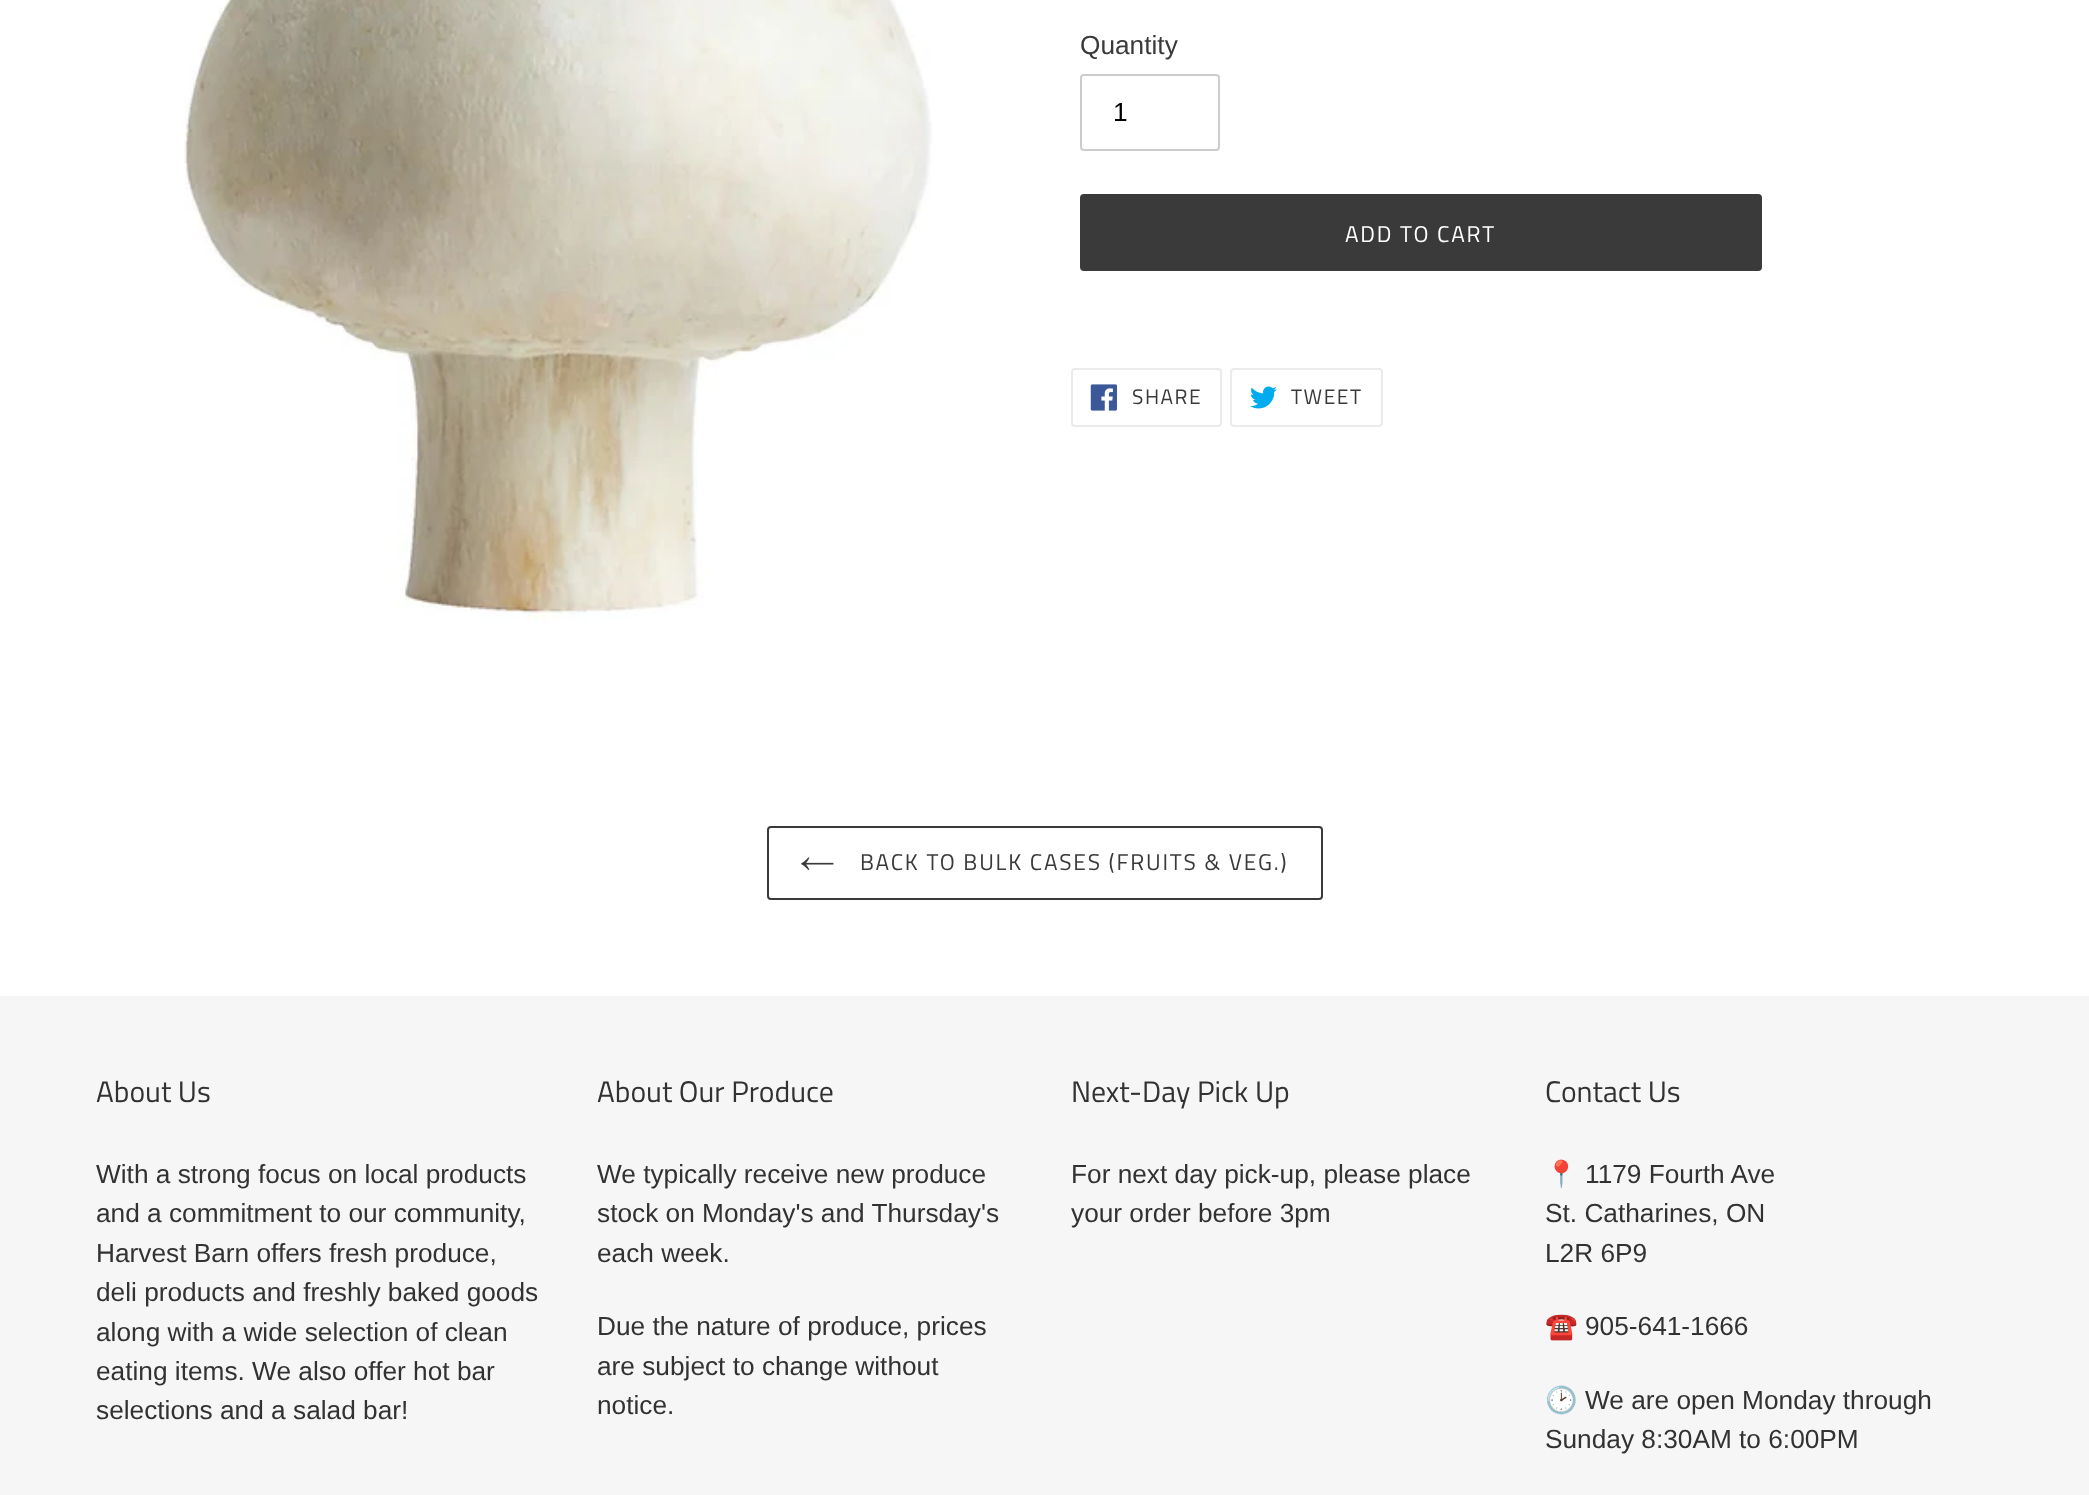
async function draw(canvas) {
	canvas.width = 2089;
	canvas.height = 1495;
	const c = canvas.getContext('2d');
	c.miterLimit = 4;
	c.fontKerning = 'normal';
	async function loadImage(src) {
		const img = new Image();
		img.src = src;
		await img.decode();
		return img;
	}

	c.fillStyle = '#fff';
	c.fillRect(0, 0, 2089, 1495);
	c.drawImage(await loadImage('img1.png'), 184, 0, 749, 621);
	c.font = '26.25px Liberation Sans';
	c.fillStyle = '#3a3a3a';
	c.fillText('Quantity', 1080, 54);
	c.beginPath();
	c.roundRect(1081, 75, 138, 75, 3);
	c.strokeStyle = '#ccc';
	c.lineWidth = 2;
	c.stroke();
	c.fillStyle = '#000';
	c.fillText('1', 1113, 121);
	c.fillStyle = '#3a3a3a';
	c.beginPath();
	c.roundRect(1080, 194, 682, 77, 4);
	c.fill();
	c.letterSpacing = '1.8px';
	c.font = '22.75px Titillium Web';
	c.fillStyle = '#fff';
	c.fillText('ADD TO CART', 1345, 242);
	c.beginPath();
	c.roundRect(1072, 369, 149, 57, 3);
	c.strokeStyle = '#ebebeb';
	c.stroke();
	c.drawImage(await loadImage('img2.png'), 1090, 384, 27, 27);
	c.letterSpacing = '1.5px';
	c.font = '21px Titillium Web';
	c.fillStyle = '#3a3a3a';
	c.fillText('SHARE', 1132, 404);
	c.beginPath();
	c.roundRect(1231, 369, 151, 57, 3);
	c.stroke();
	c.drawImage(await loadImage('img3.png'), 1250, 386, 27, 23);
	c.fillText('TWEET', 1291, 404);
	c.beginPath();
	c.roundRect(768, 827, 554, 72, 3);
	c.strokeStyle = '#3a3a3a';
	c.stroke();
	c.drawImage(await loadImage('img4.png'), 801, 857, 33, 13);
	c.letterSpacing = '1.8px';
	c.font = '22.75px Titillium Web';
	c.fillText('BACK TO BULK CASES (FRUITS & VEG.)', 860, 870);
	c.fillStyle = '#f6f6f6';
	c.fillRect(0, 996, 2089, 499);
	c.letterSpacing = '0px';
	c.font = '29.75px Titillium Web';
	c.fillStyle = '#333232';
	c.fillText('About Us', 96, 1102);
	c.font = '26.25px Liberation Sans';
	for (const [text, x, y] of [
		['With a strong focus on local products', 96, 1183],
		['and a commitment to our community,', 96, 1222],
		['Harvest Barn offers fresh produce,', 96, 1262],
		['deli products and freshly baked goods', 96, 1301],
		['along with a wide selection of clean', 96, 1341],
		['eating items. We also offer hot bar', 96, 1380],
		['selections and a salad bar!', 96, 1419],
	]) {
		c.fillText(text, x, y);
	}
	c.font = '29.75px Titillium Web';
	c.fillText('About Our Produce', 597, 1102);
	c.font = '26.25px Liberation Sans';
	for (const [text, x, y] of [
		['We typically receive new produce', 597, 1183],
		['stock on Monday\'s and Thursday\'s', 597, 1222],
		['each week.', 597, 1262],
		['Due the nature of produce, prices', 597, 1335],
		['are subject to change without', 597, 1375],
		['notice.', 597, 1414],
	]) {
		c.fillText(text, x, y);
	}
	c.font = '29.75px Titillium Web';
	c.fillText('Next-Day Pick Up', 1071, 1102);
	c.font = '26.25px Liberation Sans';
	c.fillText('For next day pick-up, please place', 1071, 1183);
	c.fillText('your order before 3pm', 1071, 1222);
	c.font = '29.75px Titillium Web';
	c.fillText('Contact Us', 1545, 1102);
	c.font = '26.25px Noto Color Emoji';
	c.fillText('📍', 1545, 1183);
	c.font = '26.25px Liberation Sans';
	for (const [text, x, y] of [
		['1179 Fourth Ave', 1585, 1183],
		['St. Catharines, ON', 1545, 1222],
		['L2R 6P9', 1545, 1262],
	]) {
		c.fillText(text, x, y);
	}
	c.font = '26.25px Noto Color Emoji';
	c.fillText('☎️', 1545, 1335);
	c.font = '26.25px Liberation Sans';
	c.fillText('905-641-1666', 1585, 1335);
	c.font = '26.25px Noto Color Emoji';
	c.fillText('🕑', 1545, 1409);
	c.font = '26.25px Liberation Sans';
	c.fillText('We are open Monday through', 1585, 1409);
	c.fillText('Sunday 8:30AM to 6:00PM', 1545, 1448);
}

draw(document.querySelector('canvas'));
